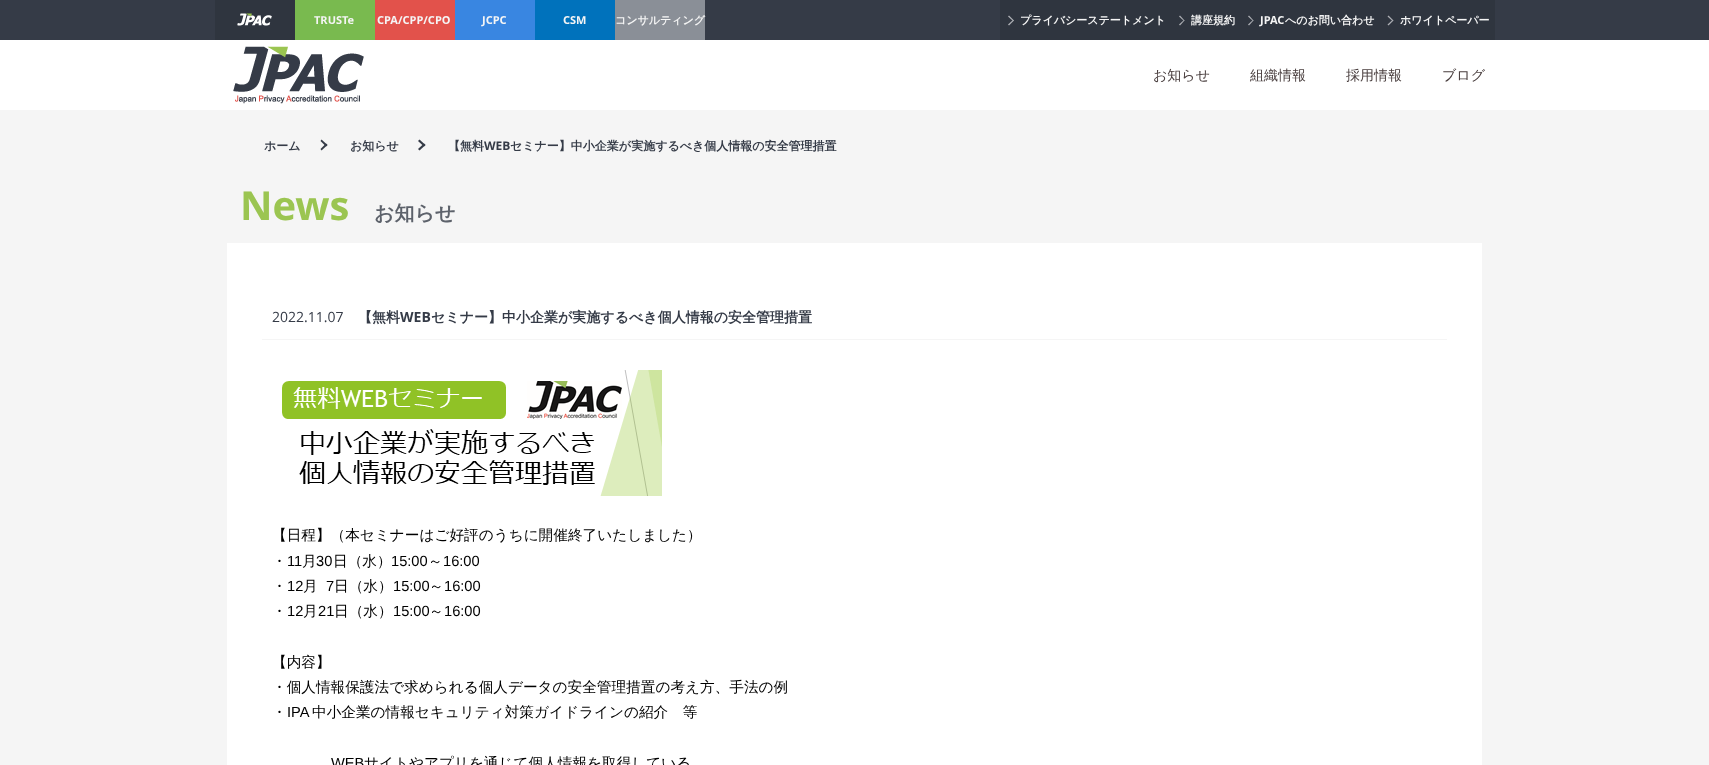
async function draw(canvas) {
	canvas.width = 1709;
	canvas.height = 765;
	const c = canvas.getContext('2d');
	c.miterLimit = 4;
	c.fontKerning = 'normal';
	async function loadImage(src) {
		const img = new Image();
		img.src = src;
		await img.decode();
		return img;
	}

	c.fillStyle = '#f5f5f5';
	c.fillRect(0, 0, 1709, 765);
	c.fillStyle = '#353b47';
	c.fillRect(0, 0, 1709, 40);
	c.fillStyle = '#2f353f';
	c.fillRect(215, 0, 80, 40);
	c.drawImage(await loadImage('img1.png'), 237, 13, 35, 13);
	c.fillStyle = '#79ba4f';
	c.fillRect(295, 0, 80, 40);
	c.font = 'bold 11px Open Sans';
	c.fillStyle = '#f5f5f5';
	c.fillText('TRUSTe', 314, 24);
	c.fillStyle = '#e2524b';
	c.fillRect(375, 0, 80, 40);
	c.fillStyle = '#f5f5f5';
	c.fillText('CPA/CPP/CPO', 377, 24);
	c.fillStyle = '#3986e1';
	c.fillRect(455, 0, 80, 40);
	c.fillStyle = '#f5f5f5';
	c.fillText('JCPC', 482, 24);
	c.fillStyle = '#0072bc';
	c.fillRect(535, 0, 80, 40);
	c.fillStyle = '#f5f5f5';
	c.fillText('CSM', 563, 24);
	c.fillStyle = '#8a8f97';
	c.fillRect(615, 0, 90, 40);
	c.font = 'bold 11px WenQuanYi Zen Hei';
	c.fillStyle = '#f5f5f5';
	c.fillText('コンサルティング', 615, 24);
	c.fillStyle = '#2f353f';
	c.fillRect(1000, 0, 495, 40);
	c.fillStyle = '#aeb0b5';
	c.beginPath();
	c.moveTo(1009, 15.5);
	c.lineTo(1014, 20.5);
	c.lineTo(1013, 21);
	c.lineTo(1008, 16.5);
	c.closePath();
	c.fill();
	c.beginPath();
	c.moveTo(1013, 20);
	c.lineTo(1014, 20.5);
	c.lineTo(1009, 25.5);
	c.lineTo(1008, 24.5);
	c.closePath();
	c.fill();
	c.fillStyle = '#f5f5f5';
	c.fillText('プライバシーステートメント', 1020, 24);
	c.fillStyle = '#aeb0b5';
	c.beginPath();
	c.moveTo(1180, 15.5);
	c.lineTo(1184.5, 20.5);
	c.lineTo(1184, 21);
	c.lineTo(1179, 16.5);
	c.closePath();
	c.fill();
	c.beginPath();
	c.moveTo(1184, 20);
	c.lineTo(1184.5, 20.5);
	c.lineTo(1180, 25.5);
	c.lineTo(1179, 24.5);
	c.closePath();
	c.fill();
	c.fillStyle = '#f5f5f5';
	c.fillText('講座規約', 1191, 24);
	c.fillStyle = '#aeb0b5';
	c.beginPath();
	c.moveTo(1249, 15.5);
	c.lineTo(1253.5, 20.5);
	c.lineTo(1253, 21);
	c.lineTo(1248, 16.5);
	c.closePath();
	c.fill();
	c.beginPath();
	c.moveTo(1253, 20);
	c.lineTo(1253.5, 20.5);
	c.lineTo(1249, 25.5);
	c.lineTo(1248, 24.5);
	c.closePath();
	c.fill();
	c.font = 'bold 11px Open Sans';
	c.fillStyle = '#f5f5f5';
	c.fillText('JPAC', 1260, 24);
	c.font = 'bold 11px WenQuanYi Zen Hei';
	c.fillText('へのお問い合わせ', 1285, 24);
	c.fillStyle = '#aeb0b5';
	c.beginPath();
	c.moveTo(1388.5, 15.5);
	c.lineTo(1393.5, 20.5);
	c.lineTo(1392.5, 21);
	c.lineTo(1387.5, 16.5);
	c.closePath();
	c.fill();
	c.beginPath();
	c.moveTo(1392.5, 20);
	c.lineTo(1393.5, 20.5);
	c.lineTo(1388.5, 25.5);
	c.lineTo(1387.5, 24.5);
	c.closePath();
	c.fill();
	c.fillStyle = '#f5f5f5';
	c.fillText('ホワイトペーパー', 1400, 24);
	c.fillStyle = '#fff';
	c.fillRect(0, 40, 1709, 70);
	c.drawImage(await loadImage('img2.png'), 233, 46, 131, 58);
	c.font = '500 14px WenQuanYi Zen Hei';
	c.fillStyle = '#4b4040';
	for (const [text, x, y] of [
		['お知らせ', 1153, 80],
		['組織情報', 1250, 80],
		['採用情報', 1346, 80],
		['ブログ', 1442, 80],
	]) {
		c.fillText(text, x, y);
	}
	c.font = 'bold 12px WenQuanYi Zen Hei';
	c.fillStyle = '#353b47';
	c.fillText('ホーム', 264, 150);
	c.beginPath();
	c.moveTo(321.5, 139.5);
	c.lineTo(327.5, 145);
	c.lineTo(326, 146.5);
	c.lineTo(320.5, 141);
	c.closePath();
	c.fill();
	c.beginPath();
	c.moveTo(326, 143.5);
	c.lineTo(327.5, 145);
	c.lineTo(321.5, 150.5);
	c.lineTo(320.5, 149);
	c.closePath();
	c.fill();
	c.fillText('お知らせ', 350, 150);
	c.beginPath();
	c.moveTo(419.5, 139.5);
	c.lineTo(425.5, 145);
	c.lineTo(424, 146.5);
	c.lineTo(418, 141);
	c.closePath();
	c.fill();
	c.beginPath();
	c.moveTo(424, 143.5);
	c.lineTo(425.5, 145);
	c.lineTo(419.5, 150.5);
	c.lineTo(418, 149);
	c.closePath();
	c.fill();
	c.fillText('【無料', 448, 150);
	c.font = 'bold 12px Open Sans';
	c.fillText('WEB', 484, 150);
	c.font = 'bold 12px WenQuanYi Zen Hei';
	c.fillText('セミナー】中小企業が実施するべき個人情報の安全管理措置', 510, 150);
	c.font = 'bold 40px Open Sans';
	c.fillStyle = '#9bc551';
	c.fillText('News', 240, 220);
	c.font = 'bold 20px WenQuanYi Zen Hei';
	c.fillStyle = '#5d626b';
	c.fillText('お知らせ', 374, 220);
	c.fillStyle = '#fff';
	c.fillRect(227, 243, 1255, 522);
	c.fillStyle = '#f5f5f5';
	c.fillRect(262, 339, 1185, 1);
	c.font = '14px Open Sans';
	c.fillStyle = '#353b47';
	c.fillText('2022.11.07', 272, 322);
	c.font = 'bold 14px WenQuanYi Zen Hei';
	c.fillText('【無料', 358, 322);
	c.font = 'bold 14px Open Sans';
	c.fillText('WEB', 400, 322);
	c.font = 'bold 14px WenQuanYi Zen Hei';
	c.fillText('セミナー】中小企業が実施するべき個人情報の安全管理措置', 431, 322);
	c.drawImage(await loadImage('img3.png'), 282, 370, 380, 126);
	c.font = '500 14.65px WenQuanYi Zen Hei';
	c.fillStyle = '#000';
	c.fillText('【日程】（本セミナーはご好評のうちに開催終了いたしました）', 272, 540);
	c.fillText('・', 272, 566);
	c.font = '14.65px Liberation Sans';
	c.fillText('11', 287, 566);
	c.font = '500 14.65px WenQuanYi Zen Hei';
	c.fillText('月', 302, 566);
	c.font = '14.65px Liberation Sans';
	c.fillText('30', 316, 566);
	c.font = '500 14.65px WenQuanYi Zen Hei';
	c.fillText('日（水）', 333, 566);
	c.font = '14.65px Liberation Sans';
	c.fillText('15:00', 391, 566);
	c.font = '500 14.65px WenQuanYi Zen Hei';
	c.fillText('～', 428, 566);
	c.font = '14.65px Liberation Sans';
	c.fillText('16:00', 443, 566);
	c.font = '500 14.65px WenQuanYi Zen Hei';
	c.fillText('・', 272, 591);
	c.font = '14.65px Liberation Sans';
	c.fillText('12', 287, 591);
	c.font = '500 14.65px WenQuanYi Zen Hei';
	c.fillText('月', 303, 591);
	c.font = '14.65px Liberation Sans';
	c.fillText('7', 326, 591);
	c.font = '500 14.65px WenQuanYi Zen Hei';
	c.fillText('日（水）', 334, 591);
	c.font = '14.65px Liberation Sans';
	c.fillText('15:00', 393, 591);
	c.font = '500 14.65px WenQuanYi Zen Hei';
	c.fillText('～', 429, 591);
	c.font = '14.65px Liberation Sans';
	c.fillText('16:00', 444, 591);
	c.font = '500 14.65px WenQuanYi Zen Hei';
	c.fillText('・', 272, 616);
	c.font = '14.65px Liberation Sans';
	c.fillText('12', 287, 616);
	c.font = '500 14.65px WenQuanYi Zen Hei';
	c.fillText('月', 303, 616);
	c.font = '14.65px Liberation Sans';
	c.fillText('21', 318, 616);
	c.font = '500 14.65px WenQuanYi Zen Hei';
	c.fillText('日（水）', 334, 616);
	c.font = '14.65px Liberation Sans';
	c.fillText('15:00', 393, 616);
	c.font = '500 14.65px WenQuanYi Zen Hei';
	c.fillText('～', 429, 616);
	c.font = '14.65px Liberation Sans';
	c.fillText('16:00', 444, 616);
	c.font = '500 14.65px WenQuanYi Zen Hei';
	for (const [text, x, y] of [
		['【内容】', 272, 667],
		['・個人情報保護法で求められる個人データの安全管理措置の考え方、手法の例', 272, 692],
		['・', 272, 717],
	]) {
		c.fillText(text, x, y);
	}
	c.font = '14.65px Liberation Sans';
	c.fillText('IPA', 287, 717);
	c.font = '500 14.65px WenQuanYi Zen Hei';
	c.fillText('中小企業の情報セキュリティ対策ガイドラインの紹介　等', 312, 717);
	c.font = '14.65px Liberation Sans';
	c.fillText('WEB', 331, 768);
	c.font = '500 14.65px WenQuanYi Zen Hei';
	c.fillText('サイトやアプリを通じて個人情報を取得している', 364, 768);
}

draw(document.querySelector('canvas'));
